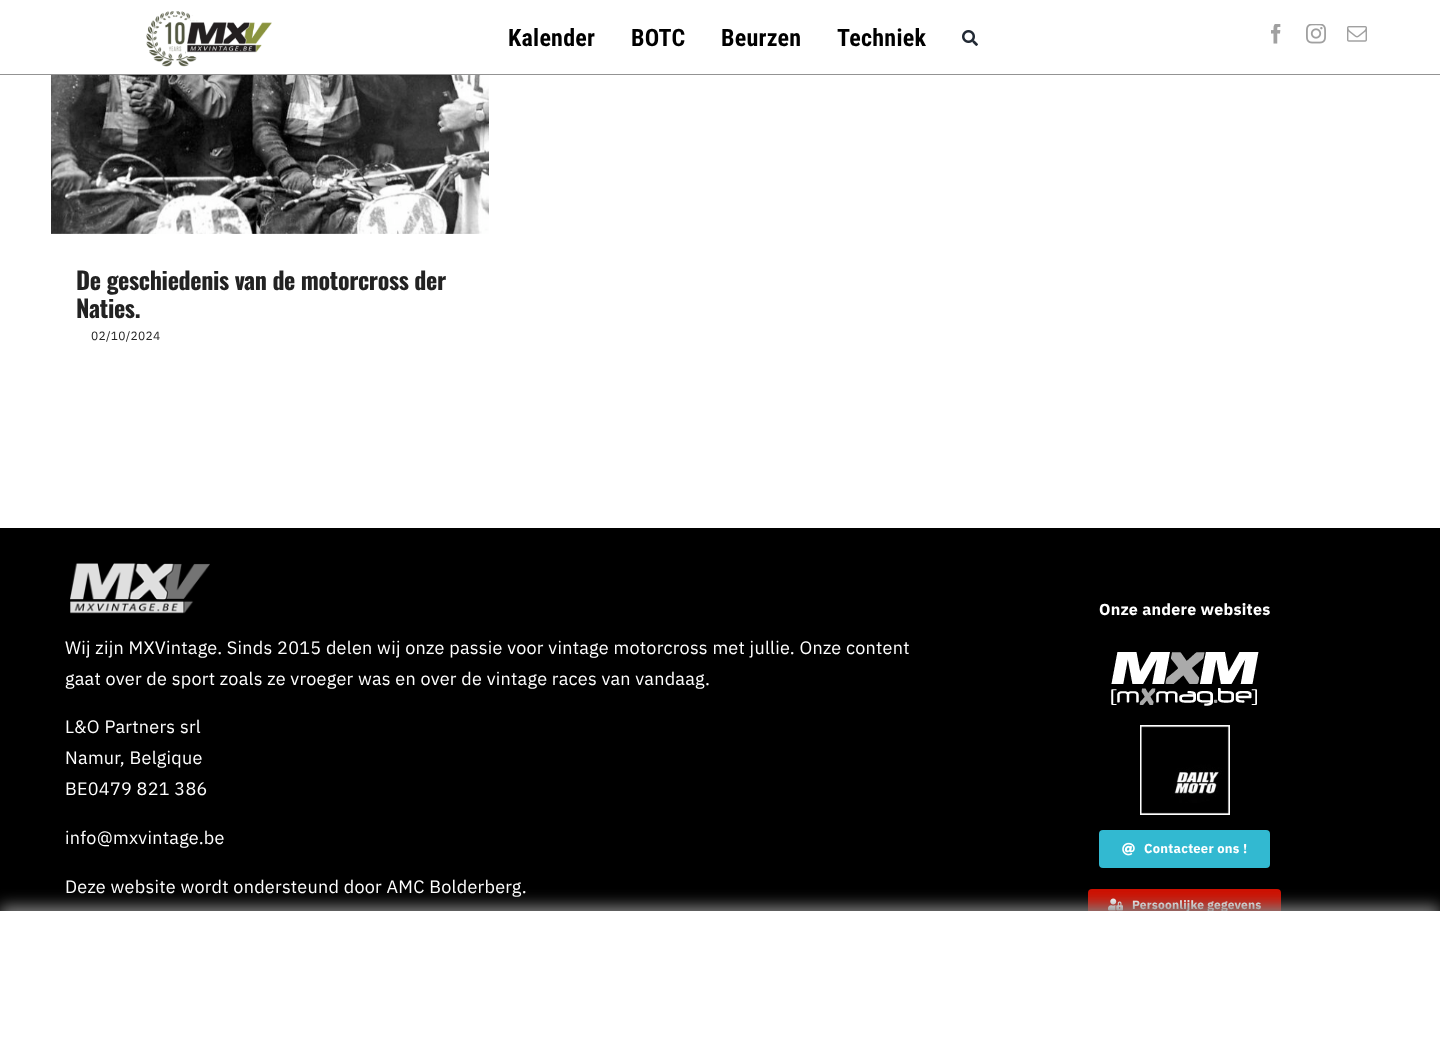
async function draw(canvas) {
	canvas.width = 1440;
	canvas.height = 1041;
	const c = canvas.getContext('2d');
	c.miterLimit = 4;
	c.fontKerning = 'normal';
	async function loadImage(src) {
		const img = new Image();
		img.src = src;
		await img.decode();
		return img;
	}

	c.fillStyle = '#fff';
	c.fillRect(0, 0, 1440, 1041);
	c.fillStyle = '#939393';
	c.fillRect(0, 74, 1440, 1);
	c.drawImage(await loadImage('img1.png'), 146, 11, 126, 56);
	c.letterSpacing = '0.25px';
	c.font = 'bold 24px Roboto Condensed';
	c.fillStyle = '#000';
	for (const [text, x, y] of [
		['Kalender', 508, 46],
		['BOTC', 631, 46],
		['Beurzen', 721, 46],
		['Techniek', 837, 46],
	]) {
		c.fillText(text, x, y);
	}
	c.drawImage(await loadImage('img2.png'), 962, 30, 16, 16);
	c.drawImage(await loadImage('img3.png'), 1271, 24, 10, 20);
	c.drawImage(await loadImage('img4.png'), 1306, 24, 20, 20);
	c.drawImage(await loadImage('img5.png'), 1347, 26, 20, 16);
	c.drawImage(await loadImage('img6.png'), 51, 75, 438, 159);
	c.letterSpacing = '-0.35px';
	c.font = 'bold 24px Oswald';
	c.fillStyle = '#222';
	c.fillText('De geschiedenis van de motorcross der', 76, 290);
	c.fillText('Naties.', 76, 318);
	c.letterSpacing = '0.27px';
	c.font = '12px IBM Plex Sans';
	c.fillText('02/10/2024', 91, 340);
	c.fillStyle = '#000';
	c.fillRect(0, 528, 1440, 383);
	c.drawImage(await loadImage('img7.png'), 70, 563, 140, 51);
	c.font = '18px IBM Plex Sans';
	c.fillStyle = '#fff';
	for (const [text, x, y] of [
		['Wij zijn MXVintage. Sinds 2015 delen wij onze passie voor vintage motorcross met jullie. Onze content', 65, 654],
		['gaat over de sport zoals ze vroeger was en over de vintage races van vandaag.', 65, 685],
		['L&O Partners srl', 65, 733],
		['Namur, Belgique', 65, 764],
		['BE0479 821 386', 65, 795],
		['info@mxvintage.be', 65, 844],
		['Deze website wordt ondersteund door AMC Bolderberg.', 65, 893],
	]) {
		c.fillText(text, x, y);
	}
	c.font = 'bold 16px IBM Plex Sans';
	c.fillText('Onze andere websites', 1099, 615);
	c.drawImage(await loadImage('img8.png'), 1111, 652, 148, 54);
	c.drawImage(await loadImage('img9.png'), 1140, 725, 90, 90);
	c.fillStyle = '#32b9d1';
	c.beginPath();
	c.roundRect(1099, 830, 171, 38, 4);
	c.fill();
	c.drawImage(await loadImage('img10.png'), 1122, 842, 13, 14);
	c.letterSpacing = '0.25px';
	c.font = 'bold 13px IBM Plex Sans';
	c.fillStyle = '#fff';
	c.fillText('Contacteer ons !', 1144, 853);
	c.fillStyle = '#ce1000';
	c.beginPath();
	c.roundRect(1088, 889, 193, 32, 4);
	c.fill();
	c.drawImage(await loadImage('img11.png'), 1108, 898, 15, 13);
	c.letterSpacing = '0.2px';
	c.font = 'bold 12px IBM Plex Sans';
	c.fillStyle = '#fff';
	c.fillText('Persoonlijke gegevens', 1132, 909);
	c.fillStyle = '#808080';
	c.filter = 'blur(7.5px)';
	c.beginPath();
	c.rect(0, 906, 1440, 130);
	c.fill();
	c.filter = 'none';
	c.fillStyle = '#fff';
	c.fillRect(0, 911, 1440, 130);
}

draw(document.querySelector('canvas'));
